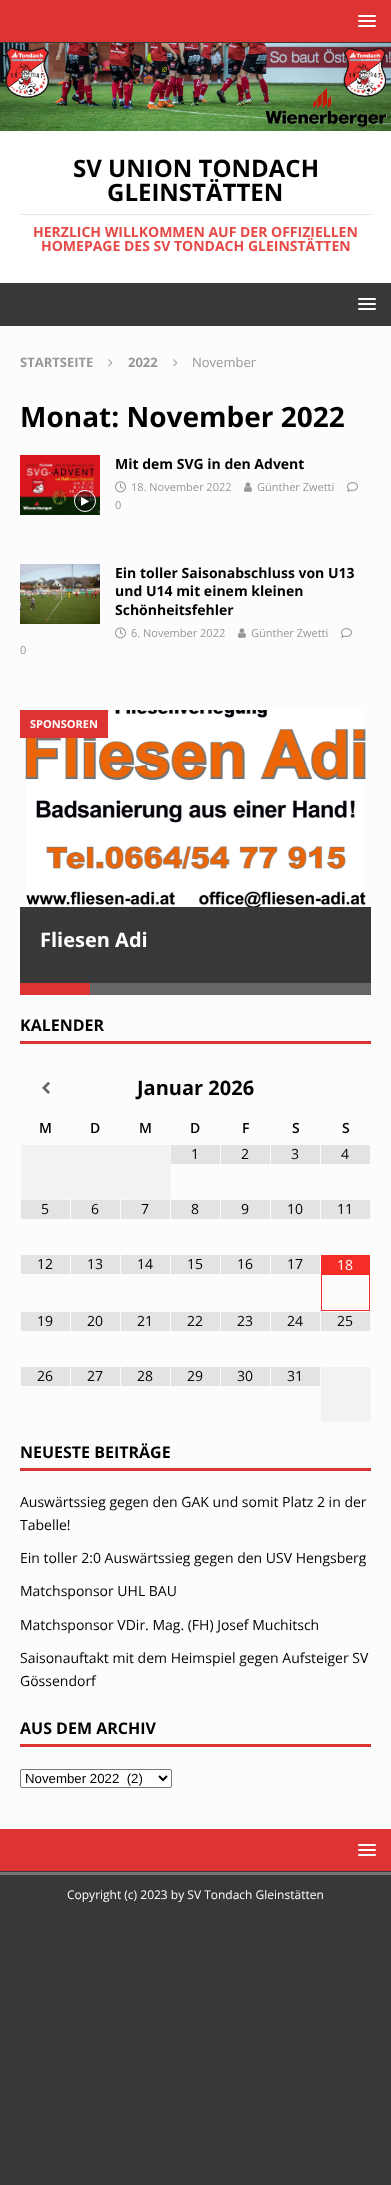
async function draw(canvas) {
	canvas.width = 391;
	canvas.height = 2185;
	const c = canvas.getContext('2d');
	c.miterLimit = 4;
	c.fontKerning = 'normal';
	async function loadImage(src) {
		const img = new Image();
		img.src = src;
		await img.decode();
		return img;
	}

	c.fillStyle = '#383838';
	c.fillRect(0, 0, 391, 2185);
	c.fillStyle = '#d33';
	c.fillRect(0, 0, 391, 42);
	c.fillStyle = '#fff';
	c.beginPath();
	c.roundRect(358, 15, 18, 2, 1);
	c.fill();
	c.beginPath();
	c.roundRect(358, 20, 18, 2, 1);
	c.fill();
	c.beginPath();
	c.roundRect(358, 25, 18, 2, 1);
	c.fill();
	c.fillRect(0, 131, 391, 152);
	c.drawImage(await loadImage('img1.png'), 0, 43, 391, 88);
	c.font = 'bold 24px Open Sans';
	c.fillStyle = '#000';
	c.fillText('SV UNION TONDACH', 73, 177);
	c.fillText('GLEINSTÄTTEN', 107, 201);
	c.fillStyle = '#e5e5e5';
	c.fillRect(20, 214, 351, 1);
	c.font = 'bold 14px Open Sans';
	c.fillStyle = '#e64946';
	c.fillText('HERZLICH WILLKOMMEN AUF DER OFFIZIELLEN', 33, 237);
	c.fillText('HOMEPAGE DES SV TONDACH GLEINSTÄTTEN', 41, 251);
	c.fillStyle = '#fff';
	c.beginPath();
	c.roundRect(358, 298, 18, 2, 1);
	c.fill();
	c.beginPath();
	c.roundRect(358, 303, 18, 2, 1);
	c.fill();
	c.beginPath();
	c.roundRect(358, 308, 18, 2, 1);
	c.fill();
	c.fillStyle = '#fcfcfc';
	c.fillRect(0, 326, 391, 1503);
	c.font = 'bold 13px Open Sans';
	c.fillStyle = '#979797';
	c.fillText('STARTSEITE', 20, 367);
	c.drawImage(await loadImage('img2.png'), 108, 359, 5, 8);
	c.fillText('2022', 128, 367);
	c.drawImage(await loadImage('img2.png'), 173, 359, 5, 8);
	c.font = '13px Open Sans';
	c.fillText('November', 192, 367);
	c.font = 'bold 28px Open Sans';
	c.fillStyle = '#000';
	c.fillText('Monat: November 2022', 20, 427);
	c.drawImage(await loadImage('img3.png'), 20, 455, 80, 60);
	c.fillStyle = '#00000066';
	c.beginPath();
	c.arc(85, 501, 10.5, 0, 2 * Math.PI);
	c.fill();
	c.strokeStyle = '#fff';
	c.stroke();
	c.drawImage(await loadImage('img4.png'), 81, 497, 8, 9);
	c.font = 'bold 14px Open Sans';
	c.fillStyle = '#000';
	c.fillText('Mit dem SVG in den Advent', 115, 469);
	c.drawImage(await loadImage('img5.png'), 115, 481, 11, 12);
	c.font = '11px Open Sans';
	c.fillStyle = '#979797';
	c.fillText('18. November 2022', 131, 491);
	c.drawImage(await loadImage('img6.png'), 244, 482, 8, 10);
	c.fillText('Günther Zwetti', 257, 491);
	c.drawImage(await loadImage('img7.png'), 347, 482, 11, 10);
	c.fillText('0', 115, 509);
	c.drawImage(await loadImage('img8.png'), 20, 564, 80, 60);
	c.font = 'bold 14px Open Sans';
	c.fillStyle = '#000';
	for (const [text, x, y] of [
		['Ein toller Saisonabschluss von U13', 115, 578],
		['und U14 mit einem kleinen', 115, 596],
		['Schönheitsfehler', 115, 615],
	]) {
		c.fillText(text, x, y);
	}
	c.drawImage(await loadImage('img5.png'), 115, 627, 11, 12);
	c.font = '11px Open Sans';
	c.fillStyle = '#979797';
	c.fillText('6. November 2022', 131, 637);
	c.drawImage(await loadImage('img6.png'), 238, 628, 8, 10);
	c.fillText('Günther Zwetti', 251, 637);
	c.drawImage(await loadImage('img7.png'), 341, 628, 11, 10);
	c.fillText('0', 20, 654);
	c.drawImage(await loadImage('img9.png'), 25, 710, 341, 197);
	c.fillStyle = '#d33';
	c.fillRect(20, 710, 88, 28);
	c.font = 'bold 11px Open Sans';
	c.fillStyle = '#fff';
	c.fillText('SPONSOREN', 30, 728);
	c.fillStyle = '#383838';
	c.fillRect(20, 907, 351, 76);
	c.font = 'bold 20px Open Sans';
	c.fillStyle = '#fff';
	c.fillText('Fliesen Adi', 40, 947);
	for (const [x, y, w, h, color] of [
		[90, 983, 281, 12, '#666'],
		[20, 983, 70, 12, '#d33'],
		[20, 1041, 351, 3, '#d33'],
	]) {
		c.fillStyle = color;
		c.fillRect(x, y, w, h);
	}
	c.font = 'bold 16px Open Sans';
	c.fillStyle = '#000';
	c.fillText('KALENDER', 20, 1031);
	c.drawImage(await loadImage('img10.png'), 42, 1081, 8, 13);
	c.font = 'bold 20px Open Sans';
	c.fillText('Januar 2026', 137, 1095);
	c.font = '600 14px Open Sans';
	for (const [text, x, y] of [
		['M', 39, 1133],
		['D', 90, 1133],
		['M', 139, 1133],
		['D', 190, 1133],
		['F', 242, 1133],
		['S', 292, 1133],
		['S', 342, 1133],
	]) {
		c.fillText(text, x, y);
	}
	for (const [x, y, w, h, color] of [
		[21, 1145, 149, 54, '#f2f2f2'],
		[21, 1199, 150, 1, '#f6f6f6'],
		[70, 1199, 1, 1, '#fbfbfb'],
		[170, 1145, 1, 55, '#f6f6f6'],
		[170, 1199, 1, 1, '#fcfcfc'],
		[171, 1145, 49, 19, '#e3e3e3'],
	]) {
		c.fillStyle = color;
		c.fillRect(x, y, w, h);
	}
	c.font = '14px Open Sans';
	c.fillStyle = '#000';
	c.fillText('1', 191, 1159);
	c.fillStyle = '#e3e3e3';
	c.fillRect(221, 1145, 49, 19);
	c.fillStyle = '#000';
	c.fillText('2', 241, 1159);
	c.fillStyle = '#e3e3e3';
	c.fillRect(271, 1145, 49, 19);
	c.fillStyle = '#000';
	c.fillText('3', 291, 1159);
	c.fillStyle = '#e3e3e3';
	c.fillRect(321, 1145, 49, 19);
	c.fillStyle = '#000';
	c.fillText('4', 341, 1159);
	c.fillStyle = '#fbfbfb';
	c.fillRect(120, 1199, 1, 1);
	c.fillStyle = '#e3e3e3';
	c.fillRect(21, 1200, 49, 19);
	c.fillStyle = '#000';
	c.fillText('5', 41, 1214);
	c.fillStyle = '#e3e3e3';
	c.fillRect(71, 1200, 49, 19);
	c.fillStyle = '#000';
	c.fillText('6', 91, 1214);
	c.fillStyle = '#e3e3e3';
	c.fillRect(121, 1200, 49, 19);
	c.fillStyle = '#000';
	c.fillText('7', 141, 1214);
	c.fillStyle = '#e3e3e3';
	c.fillRect(171, 1200, 49, 19);
	c.fillStyle = '#000';
	c.fillText('8', 191, 1214);
	c.fillStyle = '#e3e3e3';
	c.fillRect(221, 1200, 49, 19);
	c.fillStyle = '#000';
	c.fillText('9', 241, 1214);
	c.fillStyle = '#e3e3e3';
	c.fillRect(271, 1200, 49, 19);
	c.fillStyle = '#000';
	c.fillText('10', 287, 1214);
	c.fillStyle = '#e3e3e3';
	c.fillRect(321, 1200, 49, 19);
	c.fillStyle = '#000';
	c.fillText('11', 337, 1214);
	c.fillStyle = '#e3e3e3';
	c.fillRect(21, 1255, 49, 19);
	c.fillStyle = '#000';
	c.fillText('12', 37, 1269);
	c.fillStyle = '#e3e3e3';
	c.fillRect(71, 1255, 49, 19);
	c.fillStyle = '#000';
	c.fillText('13', 87, 1269);
	c.fillStyle = '#e3e3e3';
	c.fillRect(121, 1255, 49, 19);
	c.fillStyle = '#000';
	c.fillText('14', 137, 1269);
	c.fillStyle = '#e3e3e3';
	c.fillRect(171, 1255, 49, 19);
	c.fillStyle = '#000';
	c.fillText('15', 187, 1269);
	c.fillStyle = '#e3e3e3';
	c.fillRect(221, 1255, 49, 19);
	c.fillStyle = '#000';
	c.fillText('16', 237, 1269);
	c.fillStyle = '#e3e3e3';
	c.fillRect(271, 1255, 49, 19);
	c.fillStyle = '#000';
	c.fillText('17', 287, 1269);
	c.strokeStyle = '#f42e27';
	c.strokeRect(321.5, 1255.5, 48, 55);
	c.fillStyle = '#f42e27';
	c.fillRect(322, 1256, 47, 19);
	c.fillStyle = '#fff';
	c.fillText('18', 337, 1270);
	c.fillStyle = '#e3e3e3';
	c.fillRect(21, 1312, 49, 19);
	c.fillStyle = '#000';
	c.fillText('19', 37, 1326);
	c.fillStyle = '#e3e3e3';
	c.fillRect(71, 1312, 49, 19);
	c.fillStyle = '#000';
	c.fillText('20', 87, 1326);
	c.fillStyle = '#e3e3e3';
	c.fillRect(121, 1312, 49, 19);
	c.fillStyle = '#000';
	c.fillText('21', 137, 1326);
	c.fillStyle = '#e3e3e3';
	c.fillRect(171, 1312, 49, 19);
	c.fillStyle = '#000';
	c.fillText('22', 187, 1326);
	c.fillStyle = '#e3e3e3';
	c.fillRect(221, 1312, 49, 19);
	c.fillStyle = '#000';
	c.fillText('23', 237, 1326);
	c.fillStyle = '#e3e3e3';
	c.fillRect(271, 1312, 49, 19);
	c.fillStyle = '#000';
	c.fillText('24', 287, 1326);
	c.fillStyle = '#e3e3e3';
	c.fillRect(321, 1312, 49, 19);
	c.fillStyle = '#000';
	c.fillText('25', 337, 1326);
	c.fillStyle = '#e3e3e3';
	c.fillRect(21, 1367, 49, 19);
	c.fillStyle = '#000';
	c.fillText('26', 37, 1381);
	c.fillStyle = '#e3e3e3';
	c.fillRect(71, 1367, 49, 19);
	c.fillStyle = '#000';
	c.fillText('27', 87, 1381);
	c.fillStyle = '#e3e3e3';
	c.fillRect(121, 1367, 49, 19);
	c.fillStyle = '#000';
	c.fillText('28', 137, 1381);
	c.fillStyle = '#e3e3e3';
	c.fillRect(171, 1367, 49, 19);
	c.fillStyle = '#000';
	c.fillText('29', 187, 1381);
	c.fillStyle = '#e3e3e3';
	c.fillRect(221, 1367, 49, 19);
	c.fillStyle = '#000';
	c.fillText('30', 237, 1381);
	c.fillStyle = '#e3e3e3';
	c.fillRect(271, 1367, 49, 19);
	c.fillStyle = '#000';
	c.fillText('31', 287, 1381);
	for (const [x, y, w, h, color] of [
		[321, 1367, 49, 54, '#f2f2f2'],
		[321, 1421, 50, 1, '#f6f6f6'],
		[370, 1367, 1, 55, '#f6f6f6'],
		[370, 1421, 1, 1, '#f9f9f9'],
		[20, 1468, 351, 3, '#d33'],
	]) {
		c.fillStyle = color;
		c.fillRect(x, y, w, h);
	}
	c.font = 'bold 16px Open Sans';
	c.fillStyle = '#000';
	c.fillText('NEUESTE BEITRÄGE', 20, 1458);
	c.font = '14px Open Sans';
	for (const [text, x, y] of [
		['Auswärtssieg gegen den GAK und somit Platz 2 in der', 20, 1507],
		['Tabelle!', 20, 1530],
		['Ein toller 2:0 Auswärtssieg gegen den USV Hengsberg', 20, 1563],
		['Matchsponsor UHL BAU', 20, 1596],
		['Matchsponsor VDir. Mag. (FH) Josef Muchitsch', 20, 1630],
		['Saisonauftakt mit dem Heimspiel gegen Aufsteiger SV', 20, 1663],
		['Gössendorf', 20, 1686],
	]) {
		c.fillText(text, x, y);
	}
	c.fillStyle = '#d33';
	c.fillRect(20, 1744, 351, 3);
	c.font = 'bold 16px Open Sans';
	c.fillStyle = '#000';
	c.fillText('AUS DEM ARCHIV', 20, 1734);
	c.fillStyle = '#fff';
	c.beginPath();
	c.roundRect(20.5, 1769.5, 151, 18, 1.5);
	c.fill();
	c.strokeStyle = '#767676';
	c.stroke();
	c.beginPath();
	c.moveTo(159, 1776);
	c.lineTo(163, 1780);
	c.lineTo(167, 1776);
	c.strokeStyle = '#000';
	c.lineWidth = 2;
	c.stroke();
	c.font = '13.25px Liberation Sans';
	c.fillStyle = '#000';
	c.fillText('November 2022  (2)', 25, 1783);
	c.fillStyle = '#d33';
	c.fillRect(0, 1829, 391, 42);
	c.fillStyle = '#fff';
	c.beginPath();
	c.roundRect(358, 1844, 18, 2, 1);
	c.fill();
	c.beginPath();
	c.roundRect(358, 1849, 18, 2, 1);
	c.fill();
	c.beginPath();
	c.roundRect(358, 1854, 18, 2, 1);
	c.fill();
	c.fillStyle = '#747474';
	c.fillRect(0, 1872, 391, 3);
	c.font = '12px Open Sans';
	c.fillStyle = '#fff';
	c.fillText('Copyright (c) 2023 by SV Tondach Gleinstätten', 67, 1899);
}

draw(document.querySelector('canvas'));
